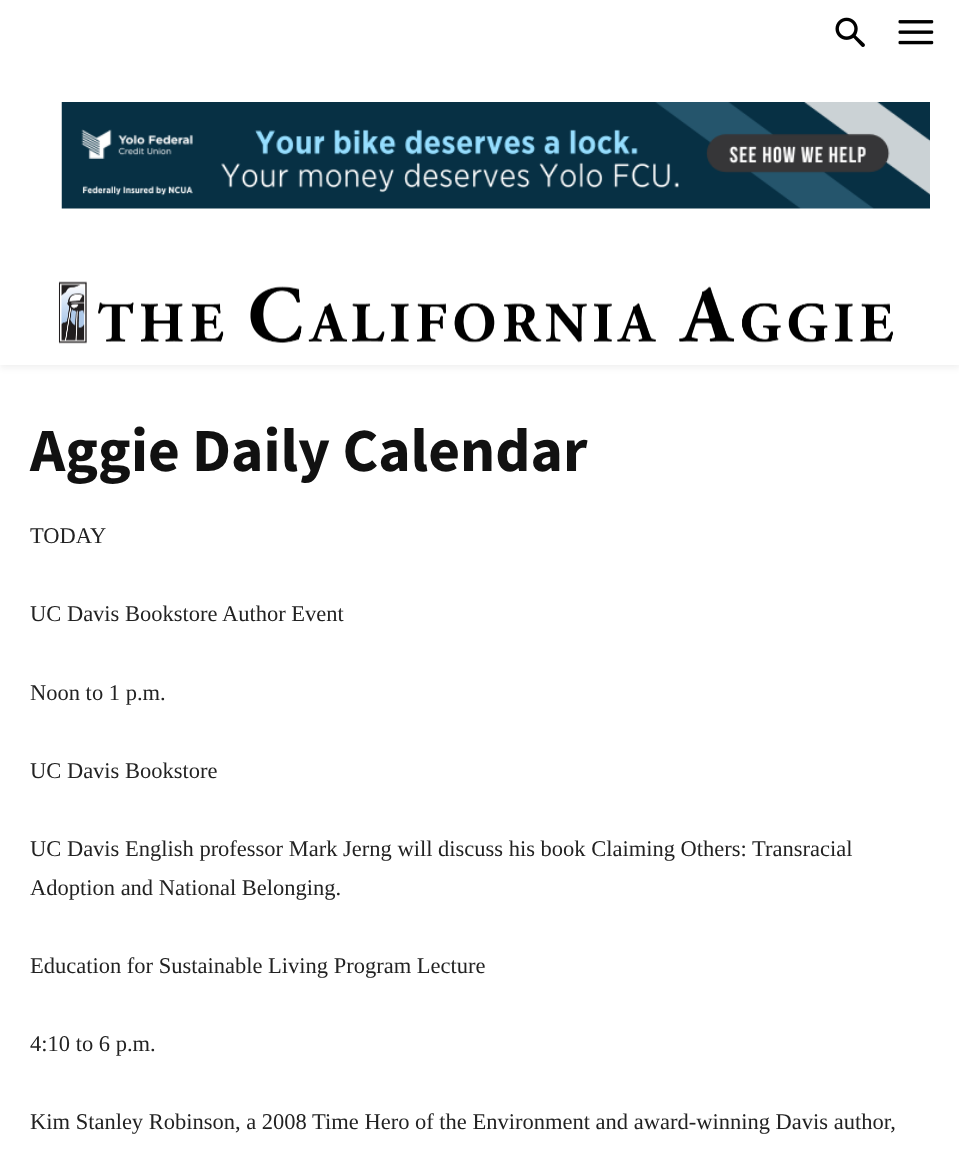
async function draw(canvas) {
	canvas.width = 959;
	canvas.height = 1159;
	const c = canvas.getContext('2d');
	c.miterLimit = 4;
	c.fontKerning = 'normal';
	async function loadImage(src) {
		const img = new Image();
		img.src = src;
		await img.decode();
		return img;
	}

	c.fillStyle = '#fff';
	c.fillRect(0, 0, 959, 1159);
	c.drawImage(await loadImage('img1.png'), 835, 17, 30, 30);
	c.drawImage(await loadImage('img2.png'), 898, 20, 36, 25);
	c.drawImage(await loadImage('img3.png'), 61, 102, 869, 107);
	c.drawImage(await loadImage('img4.png'), 58, 281, 835, 63);
	c.save();
	c.beginPath();
	c.moveTo(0, 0);
	c.lineTo(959, 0);
	c.lineTo(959, 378);
	c.lineTo(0, 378);
	c.closePath();
	c.moveTo(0, 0);
	c.lineTo(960, 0);
	c.lineTo(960, 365);
	c.lineTo(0, 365);
	c.closePath();
	c.clip('evenodd');
	c.fillStyle = '#0000000f';
	c.filter = 'blur(3px)';
	c.beginPath();
	c.rect(0, 3, 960, 365);
	c.fill();
	c.filter = 'none';
	c.restore();
	c.font = 'bold 61.5px Source Sans Pro';
	c.fillStyle = '#111';
	c.fillText('Aggie Daily Calendar', 30, 471);
	c.font = '22.5px Liberation Serif';
	c.fillStyle = '#222';
	for (const [text, x, y] of [
		['TODAY', 30, 543],
		['UC Davis Bookstore Author Event', 30, 621],
		['Noon to 1 p.m.', 30, 700],
		['UC Davis Bookstore', 30, 778],
		['UC Davis English professor Mark Jerng will discuss his book Claiming Others: Transracial', 30, 856],
		['Adoption and National Belonging.', 30, 895],
		['Education for Sustainable Living Program Lecture', 30, 973],
		['4:10 to 6 p.m.', 30, 1051],
		['Kim Stanley Robinson, a 2008 Time Hero of the Environment and award-winning Davis author,', 30, 1129],
	]) {
		c.fillText(text, x, y);
	}
}

draw(document.querySelector('canvas'));
